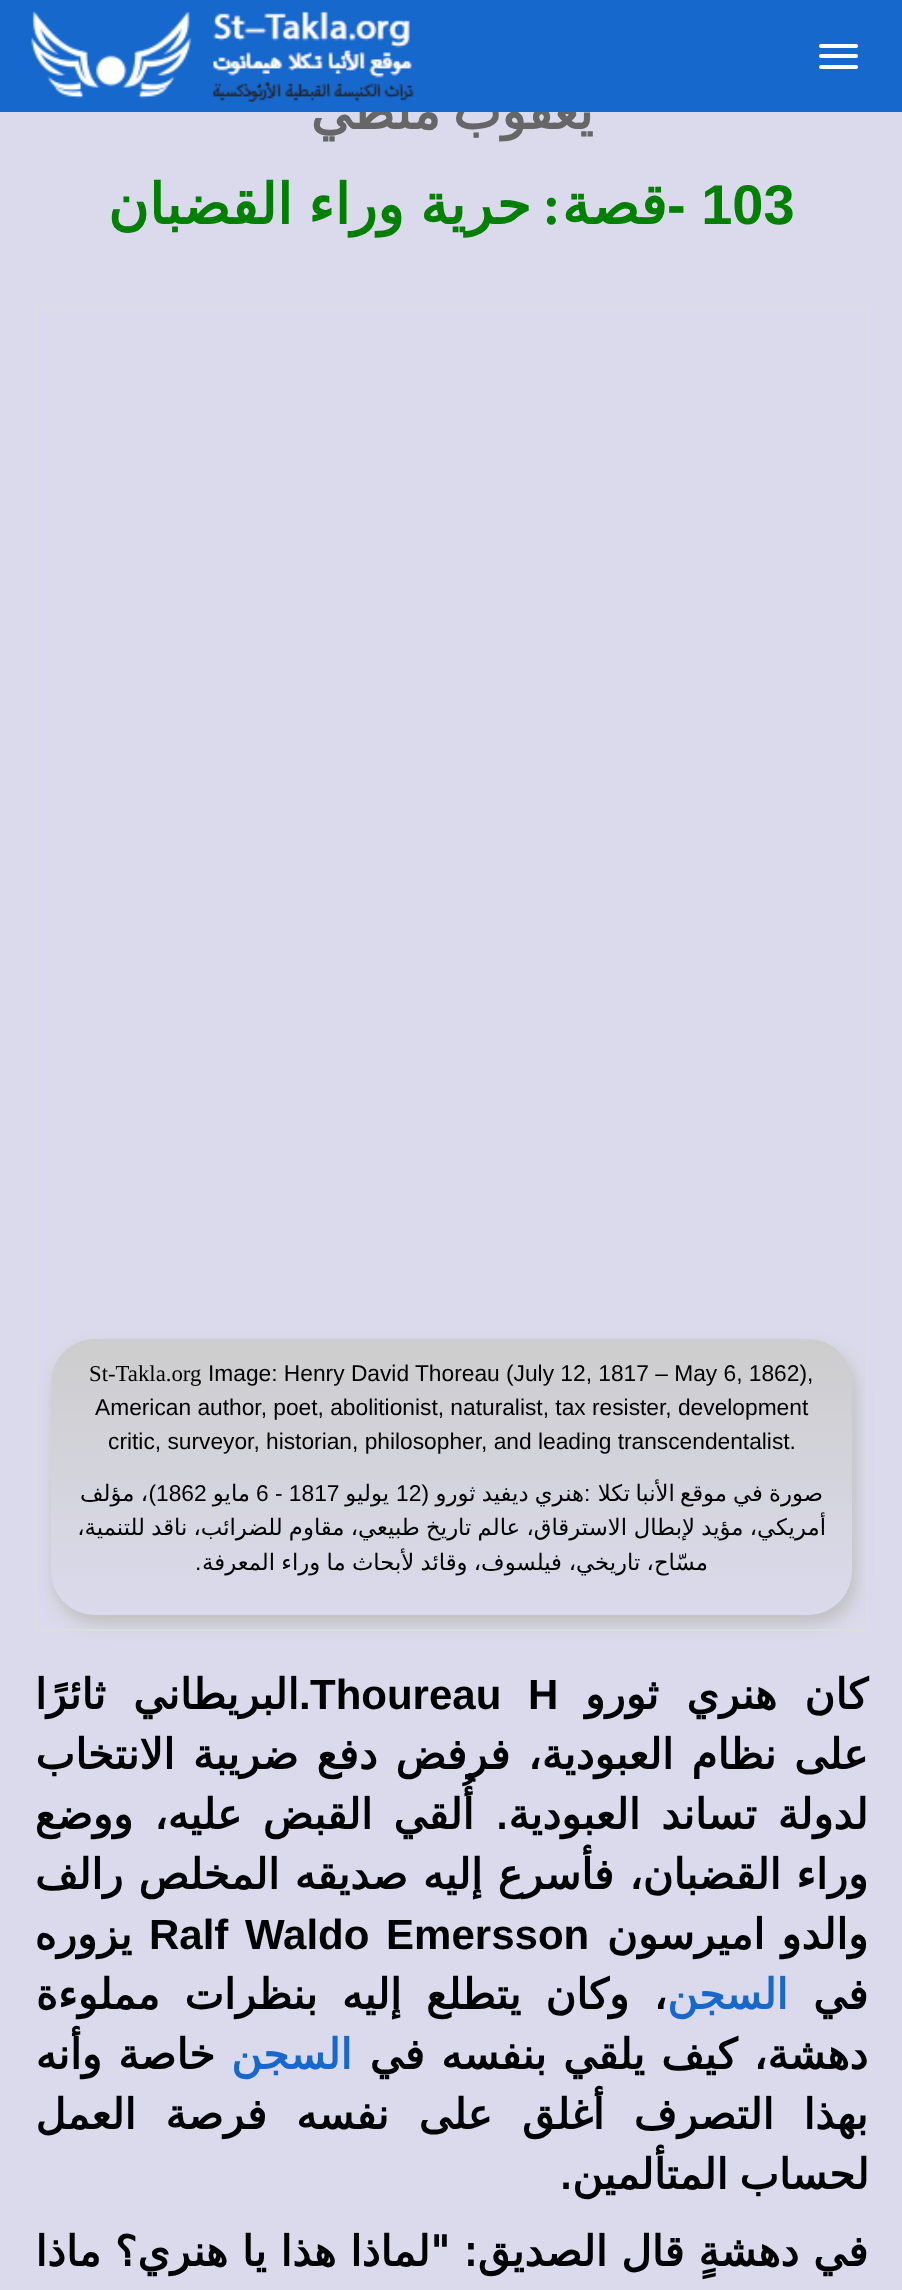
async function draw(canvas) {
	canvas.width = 902;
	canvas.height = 2290;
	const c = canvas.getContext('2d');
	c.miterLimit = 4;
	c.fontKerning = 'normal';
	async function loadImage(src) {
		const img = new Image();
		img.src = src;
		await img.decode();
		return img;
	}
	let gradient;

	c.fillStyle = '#dbdaec';
	c.fillRect(0, 0, 902, 2290);
	c.wordSpacing = '-4px';
	c.direction = 'rtl';
	c.font = 'bold 51.5px DejaVu Sans';
	c.fillStyle = '#666';
	c.fillText('يعقوب ملطي', 593, 129);
	c.fillStyle = '#1668cd';
	c.fillRect(0, 0, 902, 112);
	c.fillStyle = '#fff';
	c.beginPath();
	c.roundRect(819, 44, 39, 4, 2);
	c.fill();
	c.beginPath();
	c.roundRect(819, 54, 39, 4, 2);
	c.fill();
	c.beginPath();
	c.roundRect(819, 65, 39, 4, 2);
	c.fill();
	c.drawImage(await loadImage('img1.png'), 31, 11, 383, 91);
	c.wordSpacing = '0px';
	c.direction = 'ltr';
	c.font = 'bold 56px Liberation Sans';
	c.fillStyle = '#008000';
	c.fillText('- 103', 667, 224);
	c.direction = 'rtl';
	c.font = 'bold 56px DejaVu Sans';
	c.fillText('قصة', 667, 224);
	c.font = 'bold 56px Liberation Serif';
	c.fillText(':', 561, 224);
	c.wordSpacing = '-2px';
	c.font = 'bold 56px DejaVu Sans';
	c.fillText('حرية وراء القضبان', 531, 224);
	c.fillStyle = '#ddd';
	c.fillRect(35, 306, 833, 2);
	c.fillStyle = '#c0c0c0';
	c.filter = 'blur(8px)';
	c.beginPath();
	c.roundRect(54, 1348, 802, 276, 44);
	c.fill();
	c.filter = 'none';
	for (const [x, y, w, h, color] of [
		[866, 306, 2, 1325, '#ddd'],
		[35, 1629, 833, 2, '#ddd'],
		[35, 306, 2, 1325, '#ddd'],
	]) {
		c.fillStyle = color;
		c.fillRect(x, y, w, h);
	}
	gradient = c.createLinearGradient(452, 1339, 452, 1615);
	gradient.addColorStop(0, '#cdcdcd');
	gradient.addColorStop(1, '#dbdaec');
	c.fillStyle = gradient;
	c.beginPath();
	c.roundRect(51, 1339, 801, 276, 44);
	c.fill();
	c.wordSpacing = '0px';
	c.direction = 'ltr';
	c.font = '22.75px Liberation Sans';
	c.fillStyle = '#000';
	c.fillText('Image: Henry David Thoreau (July 12, 1817 – May 6, 1862),', 208, 1381);
	c.font = '22.75px Liberation Serif';
	c.fillText('St-Takla.org', 89, 1381);
	c.font = '22.75px Liberation Sans';
	c.fillText('American author, poet, abolitionist, naturalist, tax resister, development', 95, 1415);
	c.fillText('critic, surveyor, historian, philosopher, and leading transcendentalist.', 108, 1449);
	c.wordSpacing = '-1px';
	c.direction = 'rtl';
	c.font = '22.75px DejaVu Sans';
	c.fillText('صورة في', 823, 1501);
	c.wordSpacing = '-2px';
	c.fillText('موقع الأنبا تكلا', 727, 1501);
	c.wordSpacing = '0px';
	c.direction = 'ltr';
	c.font = '22.75px Liberation Sans';
	c.fillText(':', 584, 1501);
	c.wordSpacing = '-1px';
	c.direction = 'rtl';
	c.font = '22.75px DejaVu Sans';
	c.fillText('هنري ديفيد ثورو', 584, 1501);
	c.wordSpacing = '0px';
	c.font = '22.75px Liberation Sans';
	c.fillText('(', 429, 1501);
	c.direction = 'ltr';
	c.fillText('12', 396, 1501);
	c.direction = 'rtl';
	c.font = '22.75px DejaVu Sans';
	c.fillText('يوليو', 389, 1501);
	c.direction = 'ltr';
	c.font = '22.75px Liberation Sans';
	c.fillText('6 - 1817', 256, 1501);
	c.direction = 'rtl';
	c.font = '22.75px DejaVu Sans';
	c.fillText('مايو', 250, 1501);
	c.direction = 'ltr';
	c.font = '22.75px Liberation Sans';
	c.fillText('1862', 156, 1501);
	c.direction = 'rtl';
	c.fillText(')', 156, 1501);
	c.wordSpacing = '-1px';
	c.font = '22.75px DejaVu Sans';
	for (const [text, x, y] of [
		['، مؤلف', 148, 1501],
		['أمريكي، مؤيد لإبطال', 826, 1535],
		['الاسترقاق، عالم تاريخ طبيعي، مقاوم للضرائب، ناقد للتنمية،', 627, 1535],
		['مسّاح، تاريخي،', 708, 1570],
		['فيلسوف، وقائد لأبحاث ما وراء المعرفة', 562, 1570],
	]) {
		c.fillText(text, x, y);
	}
	c.wordSpacing = '0px';
	c.direction = 'ltr';
	c.font = '22.75px Liberation Sans';
	c.fillText('.', 195, 1570);
	c.wordSpacing = '14px';
	c.direction = 'rtl';
	c.font = 'bold 42px DejaVu Sans';
	c.fillText('كان هنري ثورو', 868, 1709);
	c.wordSpacing = '15px';
	c.direction = 'ltr';
	c.font = 'bold 42px Liberation Sans';
	c.fillText('Thoureau H', 310, 1709);
	c.wordSpacing = '0px';
	c.fillText('.', 299, 1709);
	c.wordSpacing = '14px';
	c.direction = 'rtl';
	c.font = 'bold 42px DejaVu Sans';
	c.fillText('البريطاني ثائرًا', 299, 1709);
	c.wordSpacing = '4.5px';
	c.fillText('على نظام العبودية، فرفض دفع ضريبة الانتخاب', 868, 1769);
	c.wordSpacing = '7.5px';
	c.fillText('لدولة تساند العبودية. أُلقي القبض عليه، ووضع', 868, 1829);
	c.wordSpacing = '1.75px';
	c.fillText('وراء القضبان، فأسرع إليه صديقه المخلص رالف', 868, 1889);
	c.wordSpacing = '3px';
	c.fillText('والدو اميرسون', 868, 1949);
	c.wordSpacing = '5px';
	c.direction = 'ltr';
	c.font = 'bold 42px Liberation Sans';
	c.fillText('Ralf Waldo Emersson', 149, 1949);
	c.wordSpacing = '0px';
	c.direction = 'rtl';
	c.font = 'bold 42px DejaVu Sans';
	c.fillText('يزوره', 132, 1949);
	c.fillText('في', 868, 2009);
	c.fillStyle = '#1668cd';
	c.fillText('السجن', 788, 2009);
	c.wordSpacing = '11px';
	c.fillStyle = '#000';
	c.fillText('، وكان يتطلع إليه بنظرات مملوءة', 667, 2009);
	c.wordSpacing = '3px';
	c.fillText('دهشة، كيف يلقي بنفسه في', 868, 2069);
	c.wordSpacing = '0px';
	c.fillStyle = '#1668cd';
	c.fillText('السجن', 352, 2069);
	c.wordSpacing = '3px';
	c.fillStyle = '#000';
	c.fillText('خاصة وأنه', 215, 2069);
	c.wordSpacing = '16px';
	c.fillText('بهذا التصرف أغلق على نفسه فرصة العمل', 868, 2129);
	c.wordSpacing = '-2px';
	c.fillText('لحساب المتألمين.', 869, 2189);
	c.wordSpacing = '0.5px';
	c.fillText('في دهشةٍ قال الصديق: "لماذا هذا يا هنري؟ ماذا', 868, 2266);
}

draw(document.querySelector('canvas'));
